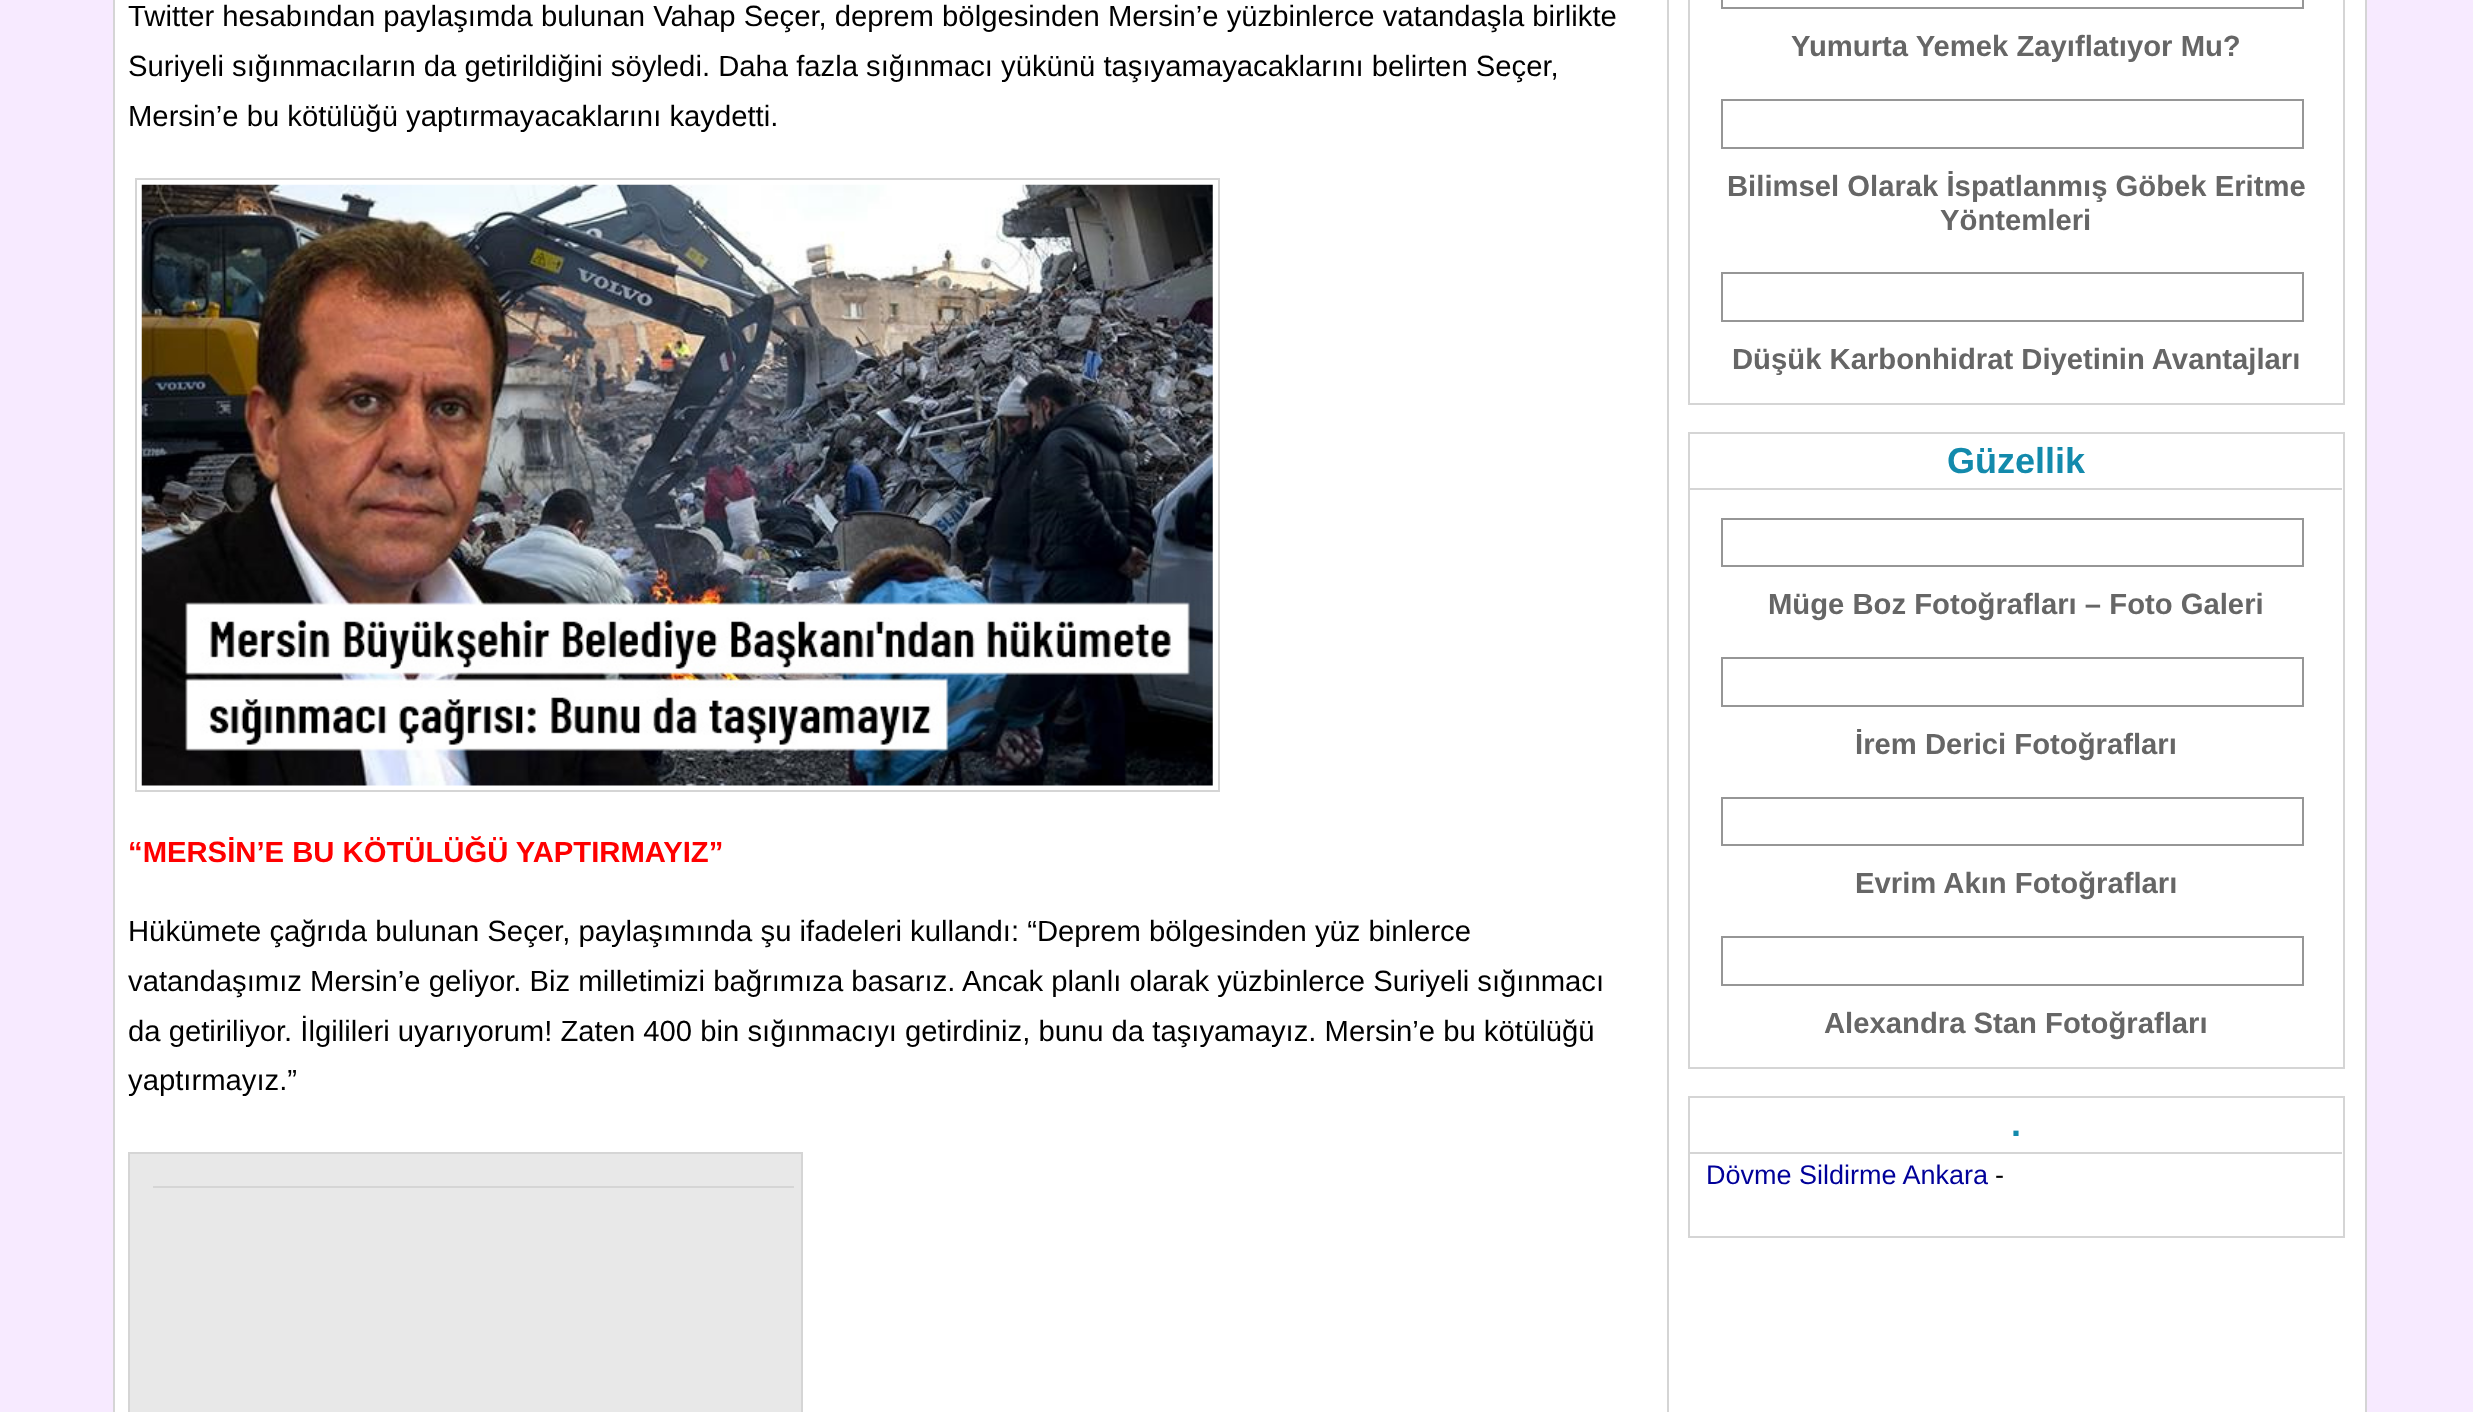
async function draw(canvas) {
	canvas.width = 2473;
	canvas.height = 1412;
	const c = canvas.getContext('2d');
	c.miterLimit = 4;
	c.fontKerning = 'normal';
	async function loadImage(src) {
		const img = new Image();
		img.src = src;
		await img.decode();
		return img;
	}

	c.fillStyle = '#f7eaff';
	c.fillRect(0, 0, 2473, 1412);
	c.fillStyle = '#fff';
	c.beginPath();
	c.rect(114, -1, 2252, 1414);
	c.fill();
	c.strokeStyle = '#d5d5d5';
	c.lineWidth = 2;
	c.stroke();
	c.fillStyle = '#d5d5d5';
	c.fillRect(1667, 0, 2, 1412);
	c.font = '29.25px Liberation Sans';
	c.fillStyle = '#000';
	for (const [text, x, y] of [
		['Twitter hesabından paylaşımda bulunan Vahap Seçer, deprem bölgesinden Mersin’e yüzbinlerce vatandaşla birlikte', 128, 26],
		['Suriyeli sığınmacıların da getirildiğini söyledi. Daha fazla sığınmacı yükünü taşıyamayacaklarını belirten Seçer,', 128, 76],
		['Mersin’e bu kötülüğü yaptırmayacaklarını kaydetti.', 128, 126],
	]) {
		c.fillText(text, x, y);
	}
	c.strokeRect(136, 179, 1083, 612);
	c.drawImage(await loadImage('img1.png'), 141, 184, 1072, 602);
	c.font = 'bold 29.25px Liberation Sans';
	c.fillStyle = '#f00';
	c.fillText('“MERSİN’E BU KÖTÜLÜĞÜ YAPTIRMAYIZ”', 128, 862);
	c.font = '29.25px Liberation Sans';
	c.fillStyle = '#000';
	for (const [text, x, y] of [
		['Hükümete çağrıda bulunan Seçer, paylaşımında şu ifadeleri kullandı: “Deprem bölgesinden yüz binlerce', 128, 941],
		['vatandaşımız Mersin’e geliyor. Biz milletimizi bağrımıza basarız. Ancak planlı olarak yüzbinlerce Suriyeli sığınmacı', 128, 991],
		['da getiriliyor. İlgilileri uyarıyorum! Zaten 400 bin sığınmacıyı getirdiniz, bunu da taşıyamayız. Mersin’e bu kötülüğü', 128, 1041],
		['yaptırmayız.”', 128, 1090],
	]) {
		c.fillText(text, x, y);
	}
	c.fillStyle = '#e8e8e8';
	c.beginPath();
	c.rect(129, 1153, 673, 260);
	c.fill();
	c.stroke();
	c.fillStyle = '#d5d5d5';
	c.fillRect(153, 1186, 641, 2);
	c.strokeRect(1689, -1, 655, 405);
	c.strokeStyle = '#969696';
	c.strokeRect(1722, -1, 581, 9);
	c.font = 'bold 29.25px Liberation Sans';
	c.fillStyle = '#666';
	c.fillText('Yumurta Yemek Zayıflatıyor Mu?', 1791, 56);
	c.strokeRect(1722, 100, 581, 48);
	c.fillText('Bilimsel Olarak İspatlanmış Göbek Eritme', 1727, 196);
	c.fillText('Yöntemleri', 1940, 230);
	c.strokeRect(1722, 273, 581, 48);
	c.fillText('Düşük Karbonhidrat Diyetinin Avantajları', 1732, 369);
	c.strokeStyle = '#d5d5d5';
	c.strokeRect(1689, 433, 655, 635);
	c.fillStyle = '#d5d5d5';
	c.fillRect(1690, 488, 652, 2);
	c.font = 'bold 36px Liberation Sans';
	c.fillStyle = '#138aac';
	c.fillText('Güzellik', 1947, 473);
	c.strokeStyle = '#969696';
	c.strokeRect(1722, 519, 581, 47);
	c.font = 'bold 29.25px Liberation Sans';
	c.fillStyle = '#666';
	c.fillText('Müge Boz Fotoğrafları – Foto Galeri', 1768, 614);
	c.strokeRect(1722, 658, 581, 48);
	c.fillText('İrem Derici Fotoğrafları', 1855, 754);
	c.strokeRect(1722, 798, 581, 47);
	c.fillText('Evrim Akın Fotoğrafları', 1855, 893);
	c.strokeRect(1722, 937, 581, 48);
	c.fillText('Alexandra Stan Fotoğrafları', 1824, 1033);
	c.strokeStyle = '#d5d5d5';
	c.strokeRect(1689, 1097, 655, 140);
	c.fillStyle = '#d5d5d5';
	c.fillRect(1690, 1152, 652, 2);
	c.font = 'bold 36px Liberation Sans';
	c.fillStyle = '#138aac';
	c.fillText('.', 2011, 1136);
	c.font = '27px Liberation Sans';
	c.fillStyle = '#009';
	c.fillText('Dövme Sildirme Ankara', 1706, 1184);
	c.fillStyle = '#000';
	c.fillText('-', 1995, 1184);
}

draw(document.querySelector('canvas'));
